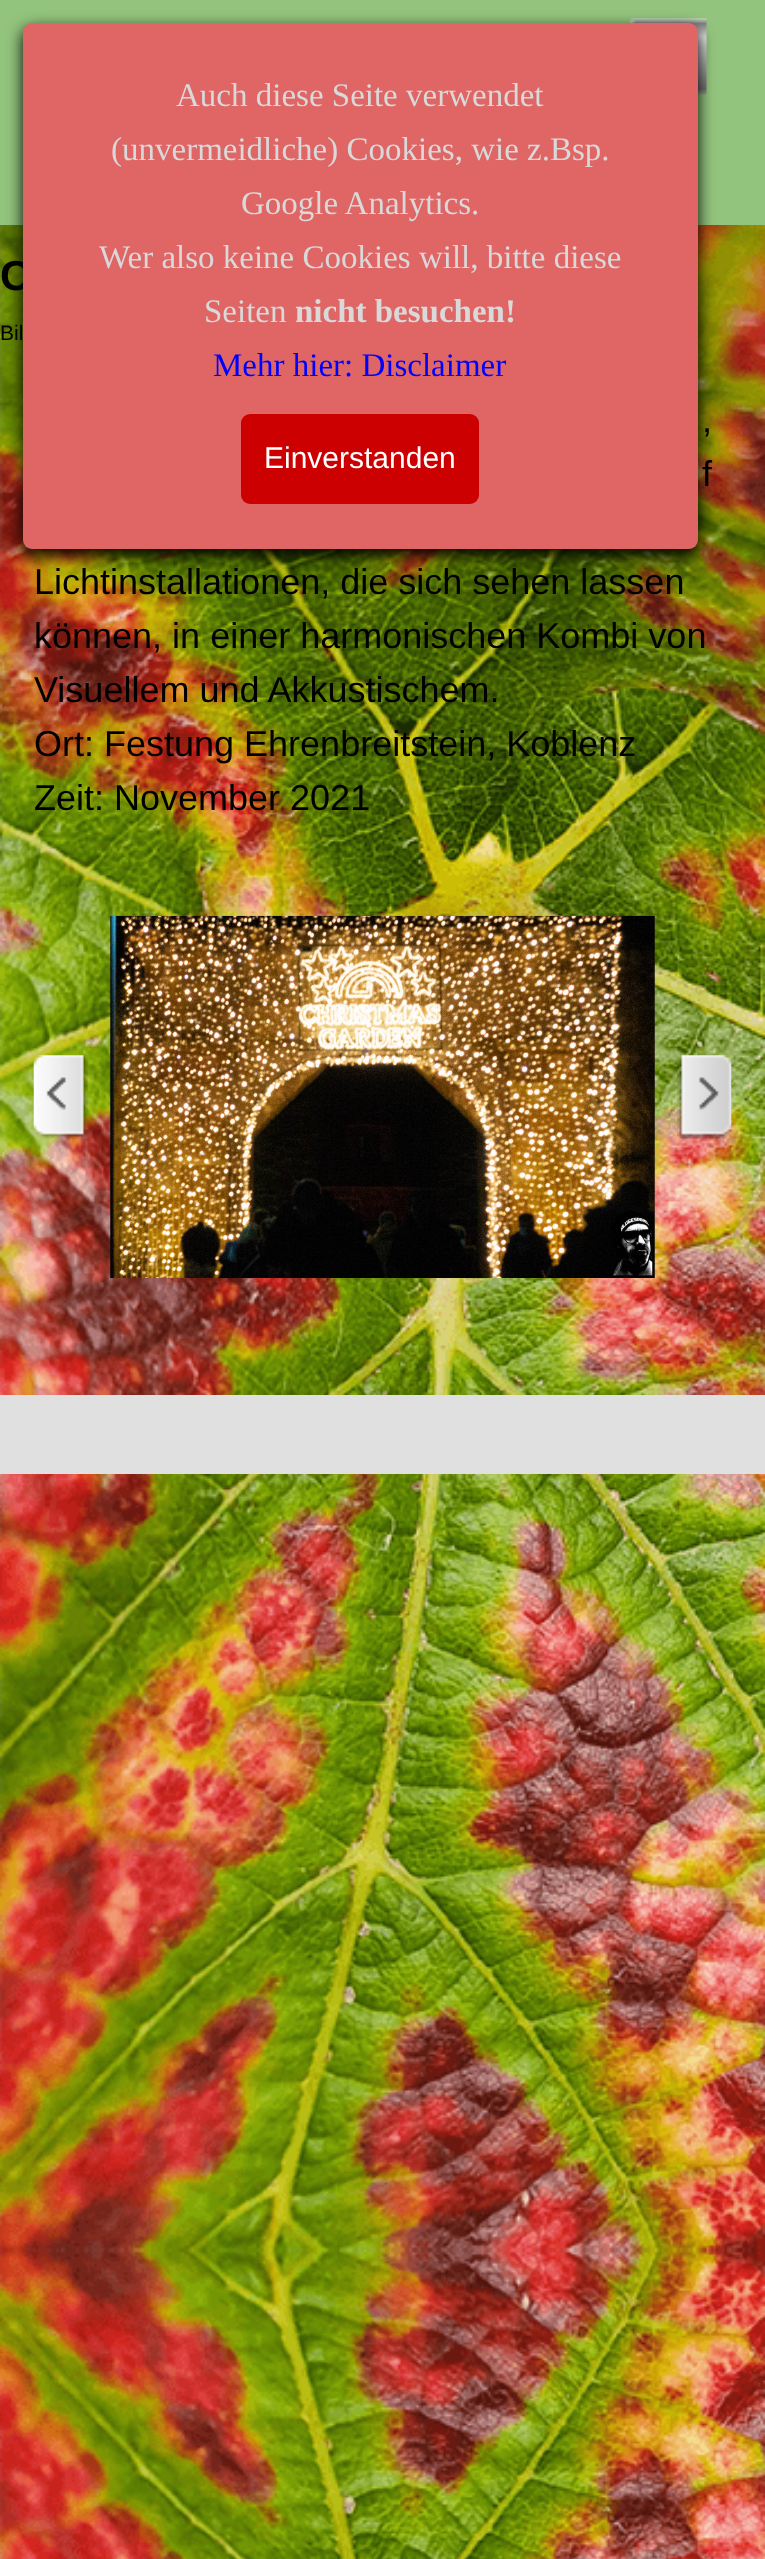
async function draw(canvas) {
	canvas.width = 765;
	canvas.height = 2559;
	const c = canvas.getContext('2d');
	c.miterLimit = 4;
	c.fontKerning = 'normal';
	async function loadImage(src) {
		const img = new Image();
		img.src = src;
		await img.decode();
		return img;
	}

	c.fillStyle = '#fff';
	c.fillRect(0, 0, 765, 2559);
	c.drawImage(await loadImage('img1.png'), 0, 225, 765, 2334);
	c.fillStyle = '#93c47d';
	c.fillRect(0, 0, 765, 225);
	c.drawImage(await loadImage('img2.png'), 630, 18, 77, 77);
	c.fillStyle = '#000';
	c.filter = 'blur(8px)';
	c.beginPath();
	c.roundRect(23, 29, 675, 527, 9);
	c.fill();
	c.filter = 'none';
	c.font = 'bold 42px Liberation Sans';
	c.fillText('C', 0, 290);
	c.fillStyle = '#e06666';
	c.beginPath();
	c.roundRect(23, 23, 675, 526, 9);
	c.fill();
	c.font = '33px Liberation Serif';
	c.fillStyle = '#d9d9d9';
	for (const [text, x, y] of [
		['Auch diese Seite verwendet', 176, 106],
		['(unvermeidliche) Cookies, wie z.Bsp.', 111, 160],
		['Google Analytics.', 241, 214],
		['Wer also keine Cookies will, bitte diese', 99, 268],
		['Seiten', 204, 322],
	]) {
		c.fillText(text, x, y);
	}
	c.font = 'bold 33px Liberation Serif';
	c.fillText('nicht besuchen!', 295, 322);
	c.font = '33px Liberation Serif';
	c.fillStyle = '#00f';
	c.fillText('Mehr hier: Disclaimer', 213, 376);
	c.fillStyle = '#c00';
	c.beginPath();
	c.roundRect(241, 414, 238, 90, 9);
	c.fill();
	c.font = '30px Liberation Sans';
	c.fillStyle = '#fff';
	c.fillText('Einverstanden', 264, 468);
	c.font = '21px Liberation Sans';
	c.fillStyle = '#000';
	c.fillText('Bil', 0, 340);
	c.font = '36px Liberation Sans';
	for (const [text, x, y] of [
		[',', 702, 432],
		['f', 702, 486],
		['Lichtinstallationen, die sich sehen lassen', 34, 594],
		['können, in einer harmonischen Kombi von', 34, 648],
		['Visuellem und Akkustischem.', 34, 702],
		['Ort: Festung Ehrenbreitstein, Koblenz', 34, 756],
		['Zeit: November 2021', 34, 810],
	]) {
		c.fillText(text, x, y);
	}
	c.drawImage(await loadImage('img3.png'), 33, 1055, 55, 84);
	c.drawImage(await loadImage('img4.png'), 110, 915, 545, 363);
	c.drawImage(await loadImage('img5.png'), 677, 1055, 55, 84);
	c.fillStyle = '#e0e0e0';
	c.fillRect(0, 1395, 765, 79);
}

draw(document.querySelector('canvas'));
